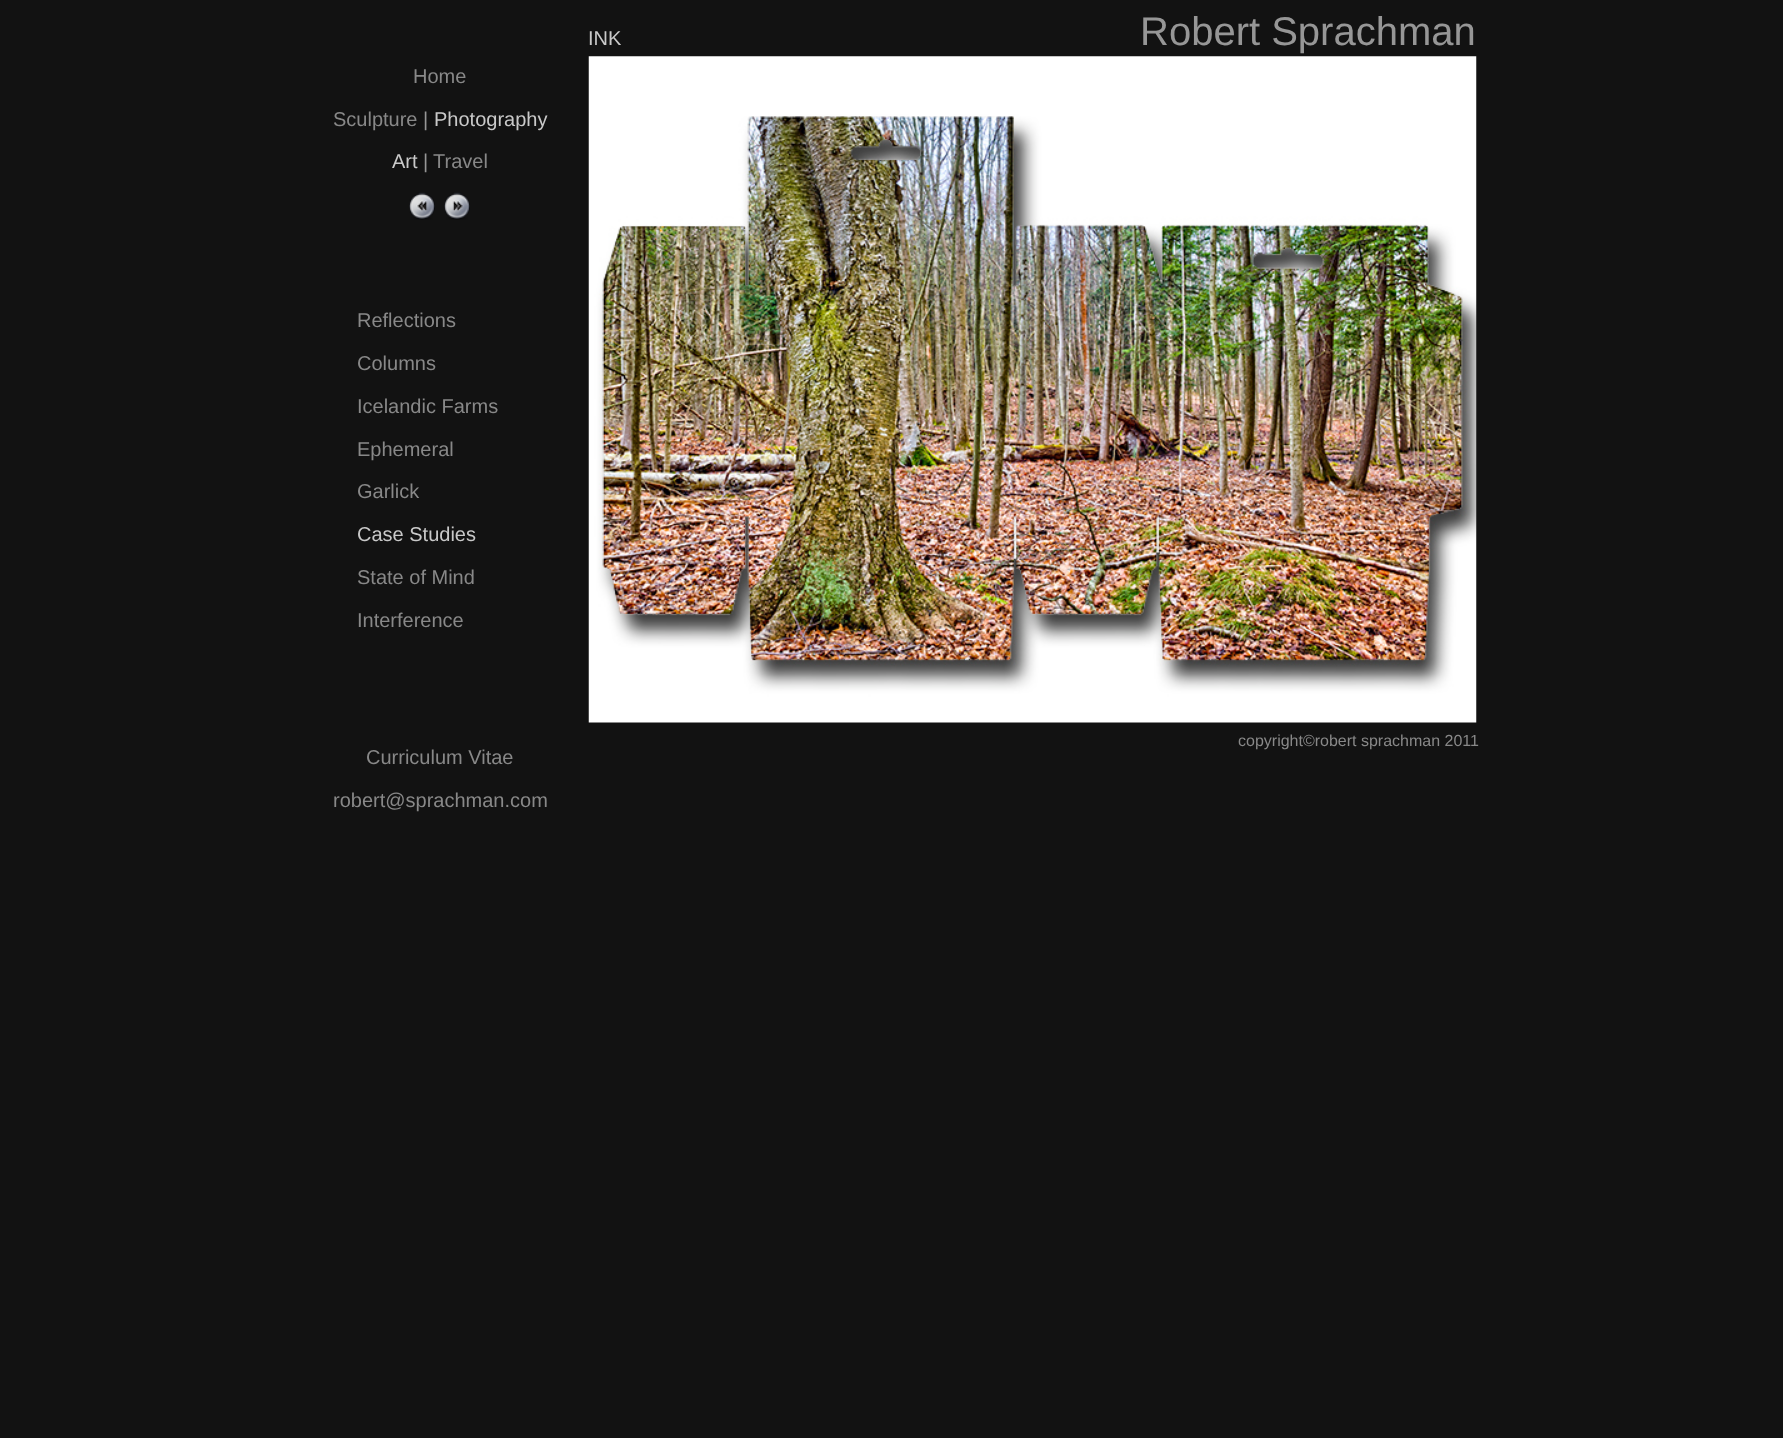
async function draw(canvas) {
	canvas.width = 1783;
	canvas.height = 1438;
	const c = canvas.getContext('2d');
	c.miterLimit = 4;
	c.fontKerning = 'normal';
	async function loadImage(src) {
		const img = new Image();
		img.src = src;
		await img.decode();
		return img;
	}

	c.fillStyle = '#121212';
	c.fillRect(0, 0, 1783, 1438);
	c.font = '20px Liberation Sans';
	c.fillStyle = '#c9c9c9';
	c.fillText('INK', 588, 45);
	c.font = '40px Liberation Sans';
	c.fillStyle = '#969696';
	c.fillText('Robert Sprachman', 1140, 45);
	c.font = '20px Liberation Sans';
	c.fillStyle = '#888';
	c.fillText('Home', 413, 83);
	c.fillText('Sculpture', 333, 126);
	c.fillStyle = '#969696';
	c.fillText('|', 423, 126);
	c.fillStyle = '#c9c9c9';
	c.fillText('Photography', 434, 126);
	c.fillText('Art', 392, 168);
	c.fillStyle = '#969696';
	c.fillText('|', 423, 168);
	c.fillStyle = '#888';
	c.fillText('Travel', 433, 168);
	c.drawImage(await loadImage('img1.png'), 409, 192, 26, 28);
	c.drawImage(await loadImage('img2.png'), 444, 192, 26, 28);
	for (const [text, x, y] of [
		['Reflections', 357, 327],
		['Columns', 357, 370],
		['Icelandic Farms', 357, 413],
		['Ephemeral', 357, 456],
		['Garlick', 357, 498],
	]) {
		c.fillText(text, x, y);
	}
	c.fillStyle = '#c9c9c9';
	c.fillText('Case Studies', 357, 541);
	c.fillStyle = '#888';
	for (const [text, x, y] of [
		['State of Mind', 357, 584],
		['Interference', 357, 627],
		['Curriculum Vitae', 366, 764],
		['robert@sprachman.com', 333, 807],
	]) {
		c.fillText(text, x, y);
	}
	c.drawImage(await loadImage('img3.png'), 588, 56, 889, 667);
	c.font = '16px Liberation Sans';
	c.fillText('copyright©robert sprachman 2011', 1238, 746);
}

draw(document.querySelector('canvas'));
